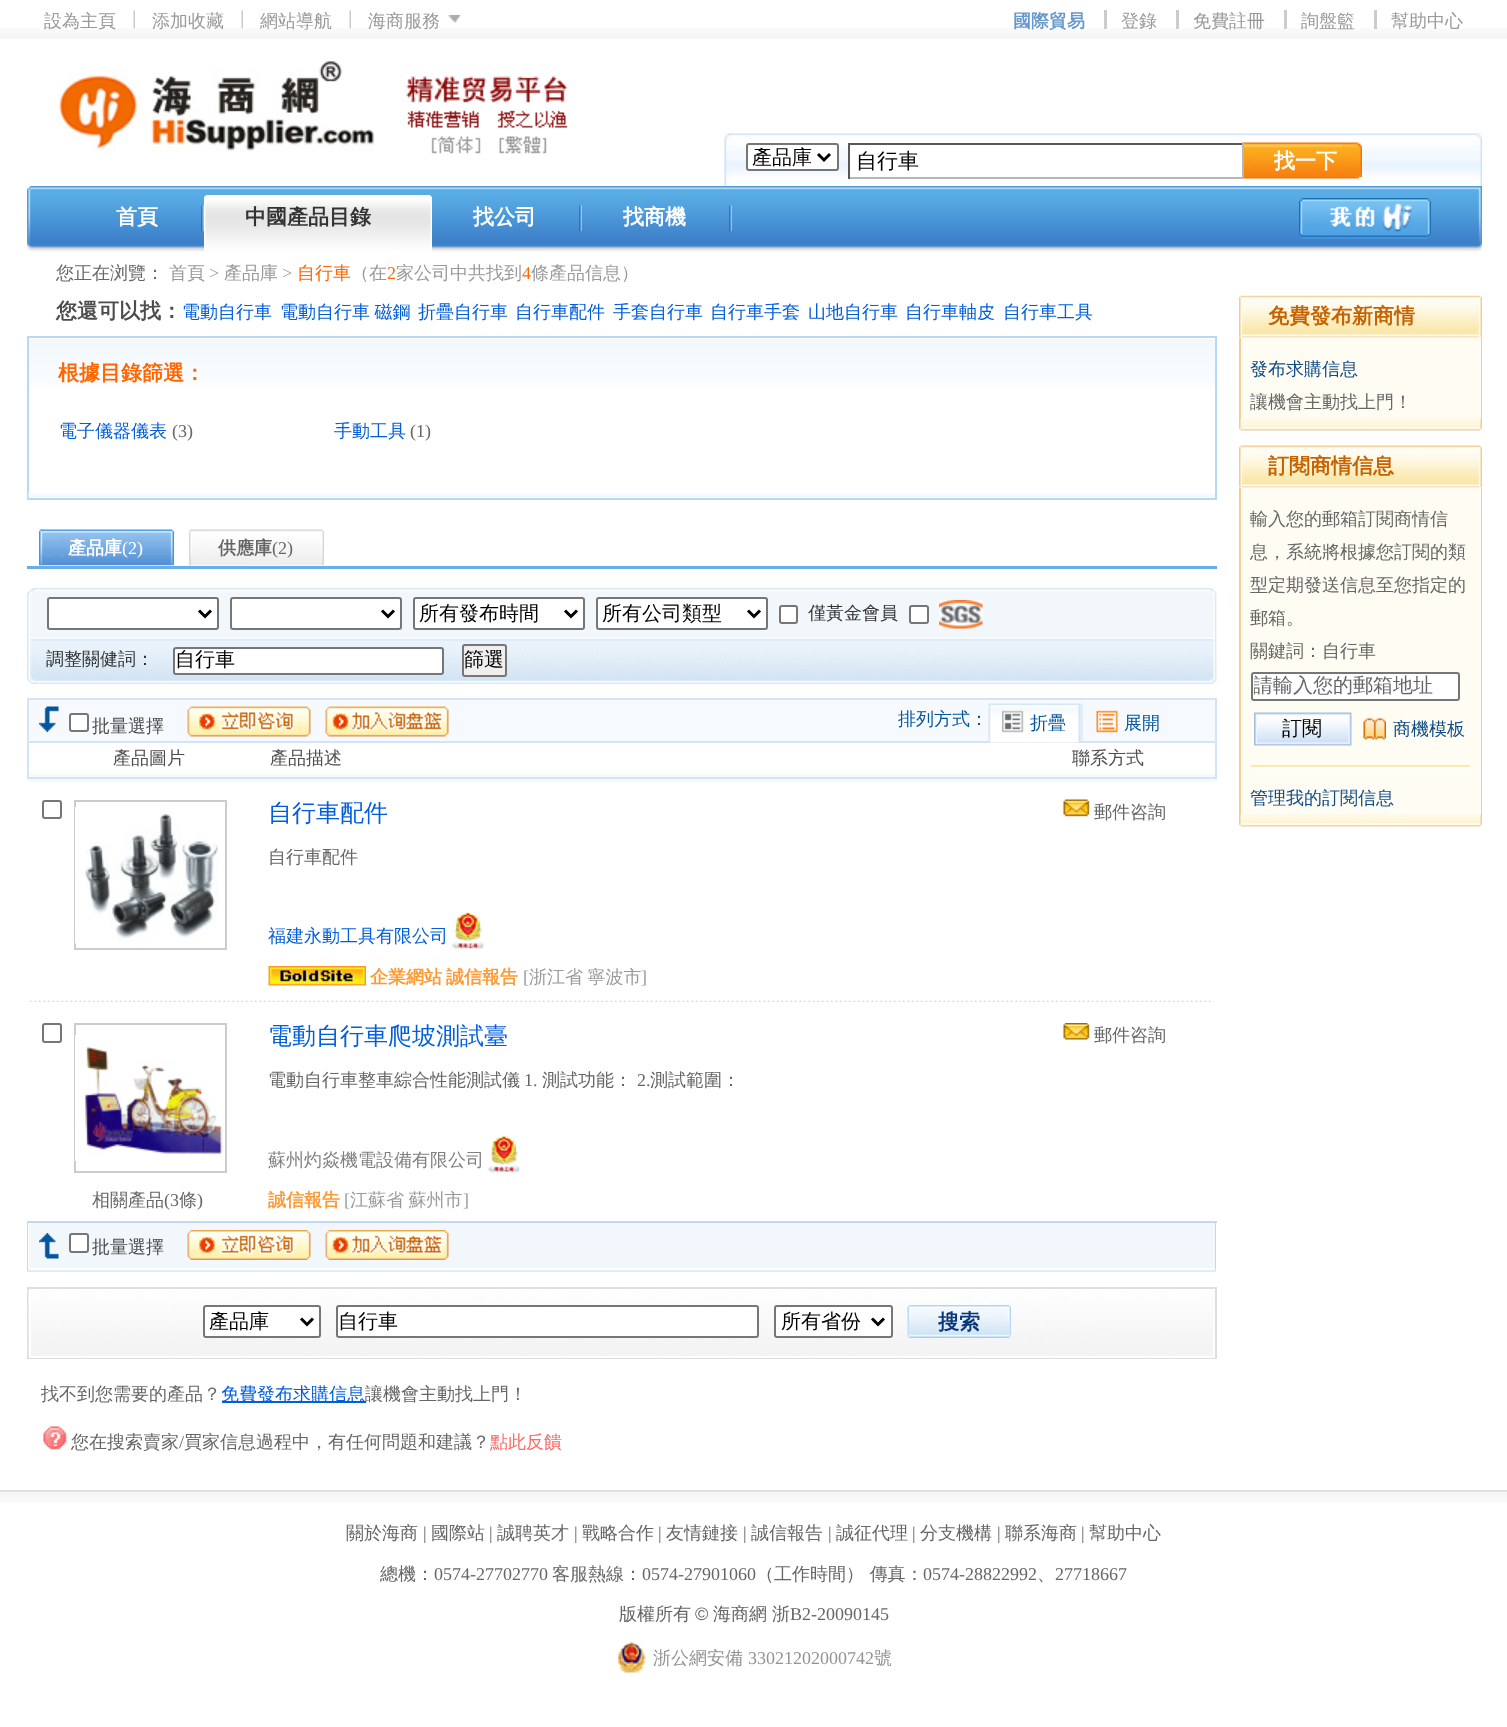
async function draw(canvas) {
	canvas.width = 1507;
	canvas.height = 1727;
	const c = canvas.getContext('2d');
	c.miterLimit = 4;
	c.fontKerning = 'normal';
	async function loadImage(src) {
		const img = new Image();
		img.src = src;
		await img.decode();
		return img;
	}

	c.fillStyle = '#fff';
	c.fillRect(0, 0, 1507, 1727);
	c.drawImage(await loadImage('img1.png'), 0, 28, 1507, 11);
	c.drawImage(await loadImage('img2.png'), 133, 10, 2, 19);
	c.font = '500 18px WenQuanYi Zen Hei';
	c.fillStyle = '#999';
	c.fillText('設為主頁', 44, 27);
	c.drawImage(await loadImage('img2.png'), 241, 10, 2, 19);
	c.fillText('添加收藏', 152, 27);
	c.drawImage(await loadImage('img2.png'), 349, 10, 2, 19);
	c.fillText('網站導航', 260, 27);
	c.drawImage(await loadImage('img3.png'), 448, 15, 13, 8);
	c.fillText('海商服務', 368, 27);
	c.font = 'bold 18px WenQuanYi Zen Hei';
	c.fillStyle = '#69c';
	c.fillText('國際貿易', 1013, 27);
	c.fillStyle = '#ccc';
	c.fillRect(1104, 10, 3, 19);
	c.font = '500 18px WenQuanYi Zen Hei';
	c.fillStyle = '#999';
	c.fillText('登錄', 1121, 27);
	c.fillStyle = '#ccc';
	c.fillRect(1176, 10, 3, 19);
	c.fillStyle = '#999';
	c.fillText('免費註冊', 1193, 27);
	c.fillStyle = '#ccc';
	c.fillRect(1284, 10, 3, 19);
	c.fillStyle = '#999';
	c.fillText('詢盤籃', 1301, 27);
	c.fillStyle = '#ccc';
	c.fillRect(1374, 10, 3, 19);
	c.fillStyle = '#999';
	c.fillText('幫助中心', 1391, 27);
	c.drawImage(await loadImage('img4.png'), 58, 60, 317, 93);
	c.drawImage(await loadImage('img5.png'), 406, 76, 162, 78);
	c.drawImage(await loadImage('img6.png'), 724, 133, 758, 44);
	c.drawImage(await loadImage('img7.png'), 724, 133, 8, 53);
	c.fillStyle = '#fff';
	c.beginPath();
	c.roundRect(747, 144, 91, 26, 2);
	c.fill();
	c.strokeStyle = '#767676';
	c.lineWidth = 2;
	c.stroke();
	c.beginPath();
	c.moveTo(818, 154);
	c.lineTo(824, 160);
	c.lineTo(830, 154);
	c.strokeStyle = '#000';
	c.lineWidth = 3;
	c.stroke();
	c.font = '500 20px WenQuanYi Zen Hei';
	c.fillStyle = '#000';
	c.fillText('產品庫', 752, 164);
	c.fillStyle = '#fff';
	c.fillRect(850, 145, 392, 32);
	c.drawImage(await loadImage('img8.png'), 1242, 142, 120, 37);
	for (const [x, y, w, h, color] of [
		[848, 143, 396, 2, '#585856'],
		[1242, 143, 2, 36, '#b6b7b9'],
		[848, 177, 396, 2, '#b6b7b9'],
		[848, 143, 2, 36, '#585856'],
	]) {
		c.fillStyle = color;
		c.fillRect(x, y, w, h);
	}
	c.font = '500 21px WenQuanYi Zen Hei';
	c.fillStyle = '#000';
	c.fillText('自行車', 856, 168);
	c.font = 'bold 21px WenQuanYi Zen Hei';
	c.fillStyle = '#fff';
	c.fillText('找一下', 1274, 168);
	c.drawImage(await loadImage('img9.png'), 1476, 133, 6, 53);
	c.drawImage(await loadImage('img10.png'), 32, 186, 1450, 66);
	c.drawImage(await loadImage('img11.png'), 27, 186, 5, 66);
	c.drawImage(await loadImage('img12.png'), 201, 205, 3, 27);
	c.fillText('首頁', 116, 224);
	c.drawImage(await loadImage('img13.png'), 204, 195, 228, 57);
	c.fillStyle = '#333';
	c.fillText('中國產品目錄', 245, 224);
	c.drawImage(await loadImage('img14.png'), 579, 205, 3, 27);
	c.fillStyle = '#fff';
	c.fillText('找公司', 473, 224);
	c.drawImage(await loadImage('img14.png'), 729, 205, 3, 27);
	c.fillText('找商機', 623, 224);
	c.drawImage(await loadImage('img15.png'), 1299, 198, 132, 41);
	c.drawImage(await loadImage('img16.png'), 1477, 187, 5, 65);
	c.font = '500 18px WenQuanYi Zen Hei';
	c.fillStyle = '#666';
	c.fillText('您正在浏覽：', 56, 279);
	c.fillStyle = '#999';
	c.fillText('首頁', 169, 279);
	c.font = '18px Liberation Serif';
	c.fillText('>', 209, 279);
	c.font = '500 18px WenQuanYi Zen Hei';
	c.fillText('產品庫', 224, 279);
	c.font = '18px Liberation Serif';
	c.fillText('>', 282, 279);
	c.font = '500 18px WenQuanYi Zen Hei';
	c.fillStyle = '#f60';
	c.fillText('自行車', 297, 279);
	c.fillStyle = '#999';
	c.fillText('（在', 351, 279);
	c.font = '18px Liberation Serif';
	c.fillStyle = '#f60';
	c.fillText('2', 387, 279);
	c.font = '500 18px WenQuanYi Zen Hei';
	c.fillStyle = '#999';
	c.fillText('家公司中共找到', 396, 279);
	c.font = '18px Liberation Serif';
	c.fillStyle = '#f60';
	c.fillText('4', 522, 279);
	c.font = '500 18px WenQuanYi Zen Hei';
	c.fillStyle = '#999';
	c.fillText('條產品信息）', 531, 279);
	c.font = 'bold 21px WenQuanYi Zen Hei';
	c.fillStyle = '#4d4d4d';
	c.fillText('您還可以找：', 56, 318);
	c.font = '500 18px WenQuanYi Zen Hei';
	c.fillStyle = '#025edb';
	c.fillText('電動自行車', 182, 318);
	c.wordSpacing = '-1px';
	c.fillText('電動自行車 磁鋼', 280, 318);
	c.wordSpacing = '0px';
	for (const [text, x, y] of [
		['折疊自行車', 418, 318],
		['自行車配件', 515, 318],
		['手套自行車', 613, 318],
		['自行車手套', 710, 318],
		['山地自行車', 808, 318],
		['自行車軸皮', 905, 318],
		['自行車工具', 1003, 318],
	]) {
		c.fillText(text, x, y);
	}
	c.drawImage(await loadImage('img17.png'), 29, 339, 1186, 48);
	for (const [x, y, w, h, color] of [
		[27, 336, 1190, 2, '#b9d9f2'],
		[1215, 336, 2, 164, '#b9d9f2'],
		[27, 336, 2, 164, '#b9d9f2'],
	]) {
		c.fillStyle = color;
		c.fillRect(x, y, w, h);
	}
	c.font = 'bold 21px WenQuanYi Zen Hei';
	c.fillStyle = '#f60';
	c.fillText('根據目錄篩選：', 58, 380);
	c.font = '500 18px WenQuanYi Zen Hei';
	c.fillStyle = '#025edb';
	c.fillText('電子儀器儀表', 59, 437);
	c.font = '18px Liberation Serif';
	c.fillStyle = '#666';
	c.fillText('(3)', 172, 437);
	c.font = '500 18px WenQuanYi Zen Hei';
	c.fillStyle = '#025edb';
	c.fillText('手動工具', 334, 437);
	c.font = '18px Liberation Serif';
	c.fillStyle = '#666';
	c.fillText('(1)', 410, 437);
	c.drawImage(await loadImage('img18.png'), 28, 492, 1187, 7);
	c.fillStyle = '#b9d9f2';
	c.fillRect(29, 498, 1186, 2);
	c.fillStyle = '#69ade9';
	c.fillRect(27, 566, 1190, 3);
	c.drawImage(await loadImage('img19.png'), 39, 529, 135, 37);
	c.drawImage(await loadImage('img20.png'), 39, 529, 4, 37);
	c.font = 'bold 18px WenQuanYi Zen Hei';
	c.fillStyle = '#fff';
	c.fillText('產品庫', 68, 554);
	c.font = '18px Liberation Serif';
	c.fillText('(2)', 122, 554);
	c.drawImage(await loadImage('img21.png'), 189, 529, 135, 37);
	c.drawImage(await loadImage('img22.png'), 189, 529, 3, 37);
	c.font = 'bold 18px WenQuanYi Zen Hei';
	c.fillStyle = '#666';
	c.fillText('供應庫', 218, 554);
	c.font = '18px Liberation Serif';
	c.fillText('(2)', 272, 554);
	c.drawImage(await loadImage('img23.png'), 36, 588, 1181, 96);
	c.drawImage(await loadImage('img24.png'), 27, 588, 9, 96);
	c.fillStyle = '#fff';
	c.beginPath();
	c.roundRect(48, 598, 170, 31, 2);
	c.fill();
	c.strokeStyle = '#767676';
	c.lineWidth = 2;
	c.stroke();
	c.beginPath();
	c.moveTo(199, 610.5);
	c.lineTo(205, 616.5);
	c.lineTo(211, 610.5);
	c.strokeStyle = '#000';
	c.lineWidth = 3;
	c.stroke();
	c.beginPath();
	c.roundRect(231, 598, 170, 31, 2);
	c.fill();
	c.strokeStyle = '#767676';
	c.lineWidth = 2;
	c.stroke();
	c.beginPath();
	c.moveTo(382, 610.5);
	c.lineTo(388, 616.5);
	c.lineTo(394, 610.5);
	c.strokeStyle = '#000';
	c.lineWidth = 3;
	c.stroke();
	c.beginPath();
	c.roundRect(414, 598, 170, 31, 2);
	c.fill();
	c.strokeStyle = '#767676';
	c.lineWidth = 2;
	c.stroke();
	c.beginPath();
	c.moveTo(565, 610.5);
	c.lineTo(571, 616.5);
	c.lineTo(577, 610.5);
	c.strokeStyle = '#000';
	c.lineWidth = 3;
	c.stroke();
	c.font = '500 20px WenQuanYi Zen Hei';
	c.fillStyle = '#000';
	c.fillText('所有發布時間', 419, 620);
	c.fillStyle = '#fff';
	c.beginPath();
	c.roundRect(597, 598, 170, 31, 2);
	c.fill();
	c.strokeStyle = '#767676';
	c.lineWidth = 2;
	c.stroke();
	c.beginPath();
	c.moveTo(748, 610.5);
	c.lineTo(754, 616.5);
	c.lineTo(760, 610.5);
	c.strokeStyle = '#000';
	c.lineWidth = 3;
	c.stroke();
	c.fillStyle = '#000';
	c.fillText('所有公司類型', 602, 620);
	c.fillStyle = '#fff';
	c.beginPath();
	c.roundRect(780, 606, 17, 17, 2);
	c.fill();
	c.strokeStyle = '#767676';
	c.lineWidth = 2;
	c.stroke();
	c.font = '500 18px WenQuanYi Zen Hei';
	c.fillStyle = '#333';
	c.fillText('僅黃金會員', 808, 619);
	c.fillStyle = '#fff';
	c.beginPath();
	c.roundRect(910, 606, 18, 17, 2);
	c.fill();
	c.stroke();
	c.drawImage(await loadImage('img25.png'), 939, 600, 44, 29);
	c.drawImage(await loadImage('img26.png'), 1209, 588, 8, 96);
	c.fillStyle = '#333';
	c.fillText('調整關健詞：', 46, 665);
	c.fillStyle = '#fff';
	c.beginPath();
	c.roundRect(174, 648, 269, 26, 2);
	c.fill();
	c.stroke();
	c.save();
	c.beginPath();
	c.rect(176, 650, 265, 22);
	c.clip();
	c.font = '500 20px WenQuanYi Zen Hei';
	c.fillStyle = '#000';
	c.fillText('自行車', 175, 666);
	c.restore();
	c.fillStyle = '#efefef';
	c.beginPath();
	c.roundRect(463, 645, 43, 31, 2);
	c.fill();
	c.stroke();
	c.font = '500 20px WenQuanYi Zen Hei';
	c.fillStyle = '#000';
	c.fillText('篩選', 464, 666);
	c.fillStyle = '#f6f9fd';
	c.fillRect(29, 700, 1186, 41);
	c.strokeStyle = '#d2e4f5';
	c.strokeRect(28, 699, 1188, 79);
	c.fillStyle = '#d2e4f5';
	c.fillRect(29, 741, 1186, 2);
	c.drawImage(await loadImage('img27.png'), 39, 706, 20, 26);
	c.fillStyle = '#fff';
	c.beginPath();
	c.roundRect(70, 714, 18, 17, 2);
	c.fill();
	c.strokeStyle = '#767676';
	c.stroke();
	c.font = '500 18px WenQuanYi Zen Hei';
	c.fillStyle = '#4d4d4d';
	c.fillText('批量選擇', 92, 732);
	c.drawImage(await loadImage('img28.png'), 187, 706, 124, 31);
	c.drawImage(await loadImage('img29.png'), 325, 706, 124, 31);
	c.fillStyle = '#03559d';
	c.fillText('排列方式：', 898, 725);
	c.drawImage(await loadImage('img30.png'), 988, 703, 95, 40);
	c.drawImage(await loadImage('img31.png'), 1002, 710, 22, 23);
	c.fillText('折疊', 1030, 729);
	c.drawImage(await loadImage('img32.png'), 1096, 710, 22, 23);
	c.fillText('展開', 1124, 729);
	c.fillStyle = '#f6f9fd';
	c.fillRect(29, 774, 1186, 3);
	c.fillStyle = '#4d4d4d';
	for (const [text, x, y] of [
		['產品圖片', 113, 764],
		['產品描述', 270, 764],
		['聯系方式', 1072, 764],
	]) {
		c.fillText(text, x, y);
	}
	c.fillStyle = '#f6f9fd';
	c.fillRect(27, 779, 1190, 3);
	c.beginPath();
	c.roundRect(43, 801, 18, 17, 2);
	c.stroke();
	c.strokeStyle = '#ccc';
	c.strokeRect(75, 801, 151, 148);
	c.drawImage(await loadImage('img33.png'), 75, 807, 144, 137);
	c.font = '500 24px WenQuanYi Zen Hei';
	c.fillStyle = '#025edb';
	c.fillText('自行車配件', 268, 821);
	c.font = '500 18px WenQuanYi Zen Hei';
	c.fillStyle = '#666';
	c.fillText('自行車配件', 268, 863);
	c.fillStyle = '#025edb';
	c.fillText('福建永動工具有限公司', 268, 942);
	c.drawImage(await loadImage('img34.png'), 451, 912, 34, 38);
	c.drawImage(await loadImage('img35.png'), 268, 966, 98, 20);
	c.font = 'bold 18px WenQuanYi Zen Hei';
	c.fillStyle = '#fd9a35';
	c.fillText('企業網站', 370, 983);
	c.fillText('誠信報告', 446, 983);
	c.font = '18px Liberation Serif';
	c.fillStyle = '#999';
	c.fillText('[', 523, 983);
	c.wordSpacing = '-1px';
	c.font = '500 18px WenQuanYi Zen Hei';
	c.fillText('浙江省 寧波市', 529, 983);
	c.wordSpacing = '0px';
	c.font = '18px Liberation Serif';
	c.fillText(']', 641, 983);
	c.drawImage(await loadImage('img36.png'), 1063, 799, 27, 18);
	c.font = '500 18px WenQuanYi Zen Hei';
	c.fillStyle = '#666';
	c.fillText('郵件咨詢', 1094, 818);
	c.drawImage(await loadImage('img37.png'), 30, 1000, 1184, 2);
	c.beginPath();
	c.roundRect(43, 1024, 18, 18, 2);
	c.strokeStyle = '#767676';
	c.stroke();
	c.font = '500 24px WenQuanYi Zen Hei';
	c.fillStyle = '#025edb';
	c.fillText('電動自行車爬坡測試臺', 268, 1044);
	c.font = '500 18px WenQuanYi Zen Hei';
	c.fillStyle = '#666';
	c.fillText('電動自行車整車綜合性能測試儀', 268, 1086);
	c.font = '18px Liberation Serif';
	c.fillText('1.', 524, 1086);
	c.font = '500 18px WenQuanYi Zen Hei';
	c.fillText('測試功能：', 542, 1086);
	c.font = '18px Liberation Serif';
	c.fillText('2.', 637, 1086);
	c.font = '500 18px WenQuanYi Zen Hei';
	c.fillText('測試範圍：', 650, 1086);
	c.fillStyle = '#808080';
	c.fillText('蘇州灼焱機電設備有限公司', 268, 1166);
	c.drawImage(await loadImage('img38.png'), 487, 1135, 34, 38);
	c.font = 'bold 18px WenQuanYi Zen Hei';
	c.fillStyle = '#fd9a35';
	c.fillText('誠信報告', 268, 1206);
	c.font = '18px Liberation Serif';
	c.fillStyle = '#999';
	c.fillText('[', 344, 1206);
	c.wordSpacing = '-1px';
	c.font = '500 18px WenQuanYi Zen Hei';
	c.fillText('江蘇省 蘇州市', 350, 1206);
	c.wordSpacing = '0px';
	c.font = '18px Liberation Serif';
	c.fillText(']', 463, 1206);
	c.drawImage(await loadImage('img39.png'), 1063, 1023, 27, 17);
	c.font = '500 18px WenQuanYi Zen Hei';
	c.fillStyle = '#666';
	c.fillText('郵件咨詢', 1094, 1041);
	c.strokeStyle = '#ccc';
	c.strokeRect(75, 1024, 151, 148);
	c.drawImage(await loadImage('img40.png'), 75, 1035, 148, 126);
	c.fillText('相關產品', 92, 1206);
	c.font = '18px Liberation Serif';
	c.fillText('(3', 164, 1206);
	c.font = '500 18px WenQuanYi Zen Hei';
	c.fillText('條', 179, 1206);
	c.font = '18px Liberation Serif';
	c.fillText(')', 197, 1206);
	c.fillStyle = '#f2f7fc';
	c.fillRect(29, 1223, 1186, 45);
	c.fillStyle = '#c2d9f1';
	c.fillRect(27, 1221, 1190, 2);
	c.beginPath();
	c.moveTo(1216, 1221);
	c.lineTo(1216, 1272);
	c.lineTo(1215, 1269);
	c.lineTo(1215, 1222);
	c.closePath();
	c.fill();
	c.fillStyle = '#ddecf8';
	c.beginPath();
	c.moveTo(1216, 1272);
	c.lineTo(27, 1272);
	c.lineTo(28, 1269);
	c.lineTo(1215, 1269);
	c.closePath();
	c.fill();
	c.fillStyle = '#c2d9f1';
	c.beginPath();
	c.moveTo(27, 1272);
	c.lineTo(27, 1221);
	c.lineTo(28, 1222);
	c.lineTo(28, 1269);
	c.closePath();
	c.fill();
	c.fillStyle = '#fff';
	c.fillRect(29, 1269, 1186, 1);
	c.drawImage(await loadImage('img41.png'), 39, 1233, 20, 26);
	c.beginPath();
	c.roundRect(70, 1234, 18, 18, 2);
	c.fill();
	c.strokeStyle = '#767676';
	c.stroke();
	c.font = '500 18px WenQuanYi Zen Hei';
	c.fillStyle = '#4d4d4d';
	c.fillText('批量選擇', 92, 1253);
	c.drawImage(await loadImage('img42.png'), 187, 1230, 124, 30);
	c.drawImage(await loadImage('img43.png'), 325, 1230, 124, 30);
	c.strokeStyle = '#dedede';
	c.strokeRect(28, 1288, 1188, 70);
	c.drawImage(await loadImage('img44.png'), 28, 1290, 1185, 66);
	c.strokeStyle = '#fff';
	c.strokeRect(30, 1290, 1184, 67);
	c.fillStyle = '#fff';
	c.beginPath();
	c.roundRect(204, 1306, 116, 31, 2);
	c.fill();
	c.strokeStyle = '#767676';
	c.stroke();
	c.beginPath();
	c.moveTo(301, 1318.5);
	c.lineTo(307, 1324.5);
	c.lineTo(313, 1318.5);
	c.strokeStyle = '#000';
	c.lineWidth = 3;
	c.stroke();
	c.font = '500 20px WenQuanYi Zen Hei';
	c.fillStyle = '#000';
	c.fillText('產品庫', 209, 1328);
	c.fillStyle = '#fff';
	c.beginPath();
	c.roundRect(337, 1306, 421, 31, 2);
	c.fill();
	c.strokeStyle = '#767676';
	c.lineWidth = 2;
	c.stroke();
	c.fillStyle = '#000';
	c.fillText('自行車', 338, 1328);
	c.fillStyle = '#fff';
	c.beginPath();
	c.roundRect(775, 1306, 117, 31, 2);
	c.fill();
	c.stroke();
	c.beginPath();
	c.moveTo(872, 1318.5);
	c.lineTo(878, 1324.5);
	c.lineTo(884, 1318.5);
	c.strokeStyle = '#000';
	c.lineWidth = 3;
	c.stroke();
	c.fillStyle = '#000';
	c.fillText('所有省份', 781, 1328);
	c.drawImage(await loadImage('img45.png'), 907, 1305, 104, 33);
	c.font = 'bold 21px WenQuanYi Zen Hei';
	c.fillStyle = '#073779';
	c.fillText('搜索', 938, 1329);
	c.font = '500 18px WenQuanYi Zen Hei';
	c.fillStyle = '#666';
	c.fillText('找不到您需要的產品？', 41, 1400);
	c.fillStyle = '#025edb';
	c.fillRect(222, 1401, 144, 2);
	c.fillText('免費發布求購信息', 221, 1400);
	c.fillStyle = '#666';
	c.fillText('讓機會主動找上門！', 365, 1400);
	c.drawImage(await loadImage('img46.png'), 43, 1425, 24, 25);
	c.fillText('您在搜索賣家', 71, 1448);
	c.font = '18px Liberation Serif';
	c.fillText('/', 179, 1448);
	c.font = '500 18px WenQuanYi Zen Hei';
	c.fillText('買家信息過程中，有任何問題和建議？', 184, 1448);
	c.fillStyle = '#f66';
	c.fillText('點此反饋', 490, 1448);
	c.drawImage(await loadImage('img47.png'), 1239, 295, 243, 43);
	c.font = 'bold 21px WenQuanYi Zen Hei';
	c.fillStyle = '#c66200';
	c.fillText('免費發布新商情', 1268, 323);
	for (const [x, y, w, h, color] of [
		[1241, 338, 240, 81, '#fffdf3'],
		[1481, 338, 1, 81, '#f2ce95'],
		[1239, 338, 2, 81, '#f2ce95'],
	]) {
		c.fillStyle = color;
		c.fillRect(x, y, w, h);
	}
	c.font = '500 18px WenQuanYi Zen Hei';
	c.fillStyle = '#0e4c87';
	c.fillText('發布求購信息', 1250, 375);
	c.fillStyle = '#666';
	c.fillText('讓機會主動找上門！', 1250, 408);
	c.drawImage(await loadImage('img48.png'), 1239, 418, 243, 13);
	c.drawImage(await loadImage('img49.png'), 1239, 445, 243, 43);
	c.font = 'bold 21px WenQuanYi Zen Hei';
	c.fillStyle = '#c66200';
	c.fillText('訂閱商情信息', 1268, 473);
	for (const [x, y, w, h, color] of [
		[1241, 488, 240, 327, '#fffdf3'],
		[1481, 488, 1, 327, '#f2ce95'],
		[1239, 488, 2, 327, '#f2ce95'],
	]) {
		c.fillStyle = color;
		c.fillRect(x, y, w, h);
	}
	c.font = '500 18px WenQuanYi Zen Hei';
	c.fillStyle = '#666';
	for (const [text, x, y] of [
		['輸入您的郵箱訂閱商情信', 1250, 525],
		['息，系統將根據您訂閱的類', 1250, 558],
		['型定期發送信息至您指定的', 1250, 591],
		['郵箱。', 1250, 624],
		['關鍵詞：自行車', 1250, 657],
	]) {
		c.fillText(text, x, y);
	}
	c.fillStyle = '#fff';
	c.beginPath();
	c.roundRect(1252, 673, 207, 27, 2);
	c.fill();
	c.strokeStyle = '#767676';
	c.lineWidth = 2;
	c.stroke();
	c.save();
	c.beginPath();
	c.rect(1254, 675, 203, 23);
	c.clip();
	c.font = '500 20px WenQuanYi Zen Hei';
	c.fillStyle = '#666';
	c.fillText('請輸入您的郵箱地址', 1253, 692);
	c.restore();
	c.drawImage(await loadImage('img50.png'), 1254, 712, 98, 34);
	c.font = '500 20px WenQuanYi Zen Hei';
	c.fillStyle = '#000';
	c.fillText('訂閱', 1282, 735);
	c.drawImage(await loadImage('img51.png'), 1363, 718, 23, 22);
	c.font = '500 18px WenQuanYi Zen Hei';
	c.fillStyle = '#0e4c87';
	c.fillText('商機模板', 1393, 735);
	c.fillStyle = '#faeca8';
	c.fillRect(1251, 765, 219, 2);
	c.fillStyle = '#fff';
	c.fillRect(1251, 767, 219, 2);
	c.fillStyle = '#0e4c87';
	c.fillText('管理我的訂閱信息', 1250, 804);
	c.drawImage(await loadImage('img48.png'), 1239, 814, 243, 13);
	c.drawImage(await loadImage('img52.png'), 0, 1492, 1507, 11);
	c.fillStyle = '#dfdfdf';
	c.fillRect(0, 1490, 1507, 2);
	c.fillStyle = '#666';
	c.fillText('關於海商', 346, 1539);
	c.font = '18px Liberation Serif';
	c.fillText('|', 423, 1539);
	c.font = '500 18px WenQuanYi Zen Hei';
	c.fillText('國際站', 431, 1539);
	c.font = '18px Liberation Serif';
	c.fillText('|', 489, 1539);
	c.font = '500 18px WenQuanYi Zen Hei';
	c.fillText('誠聘英才', 497, 1539);
	c.font = '18px Liberation Serif';
	c.fillText('|', 574, 1539);
	c.font = '500 18px WenQuanYi Zen Hei';
	c.fillText('戰略合作', 582, 1539);
	c.font = '18px Liberation Serif';
	c.fillText('|', 658, 1539);
	c.font = '500 18px WenQuanYi Zen Hei';
	c.fillText('友情鏈接', 666, 1539);
	c.font = '18px Liberation Serif';
	c.fillText('|', 743, 1539);
	c.font = '500 18px WenQuanYi Zen Hei';
	c.fillText('誠信報告', 751, 1539);
	c.font = '18px Liberation Serif';
	c.fillText('|', 828, 1539);
	c.font = '500 18px WenQuanYi Zen Hei';
	c.fillText('誠征代理', 836, 1539);
	c.font = '18px Liberation Serif';
	c.fillText('|', 912, 1539);
	c.font = '500 18px WenQuanYi Zen Hei';
	c.fillText('分支機構', 920, 1539);
	c.font = '18px Liberation Serif';
	c.fillText('|', 997, 1539);
	c.font = '500 18px WenQuanYi Zen Hei';
	c.fillText('聯系海商', 1005, 1539);
	c.font = '18px Liberation Serif';
	c.fillText('|', 1081, 1539);
	c.font = '500 18px WenQuanYi Zen Hei';
	c.fillText('幫助中心', 1089, 1539);
	c.fillText('總機：', 380, 1580);
	c.font = '18px Liberation Serif';
	c.fillText('0574-27702770', 434, 1580);
	c.font = '500 18px WenQuanYi Zen Hei';
	c.fillText('客服熱線：', 552, 1580);
	c.font = '18px Liberation Serif';
	c.fillText('0574-27901060', 642, 1580);
	c.font = '500 18px WenQuanYi Zen Hei';
	c.fillText('（工作時間） 傳真：', 756, 1580);
	c.font = '18px Liberation Serif';
	c.fillText('0574-28822992', 923, 1580);
	c.font = '500 18px WenQuanYi Zen Hei';
	c.fillText('、', 1037, 1580);
	c.font = '18px Liberation Serif';
	c.fillText('27718667', 1055, 1580);
	c.font = '500 18px WenQuanYi Zen Hei';
	c.fillText('版權所有', 619, 1620);
	c.font = '18px Liberation Sans';
	c.fillText('©', 695, 1620);
	c.font = '500 18px WenQuanYi Zen Hei';
	c.fillText('海商網', 713, 1620);
	c.fillText('浙', 772, 1620);
	c.font = '18px Liberation Serif';
	c.fillText('B2-20090145', 790, 1620);
	c.drawImage(await loadImage('img53.png'), 617, 1642, 29, 31);
	c.font = '500 18px WenQuanYi Zen Hei';
	c.fillStyle = '#939393';
	c.fillText('浙公網安備', 653, 1664);
	c.font = '18px Liberation Serif';
	c.fillText('33021202000742', 748, 1664);
	c.font = '500 18px WenQuanYi Zen Hei';
	c.fillText('號', 874, 1664);
}

draw(document.querySelector('canvas'));
